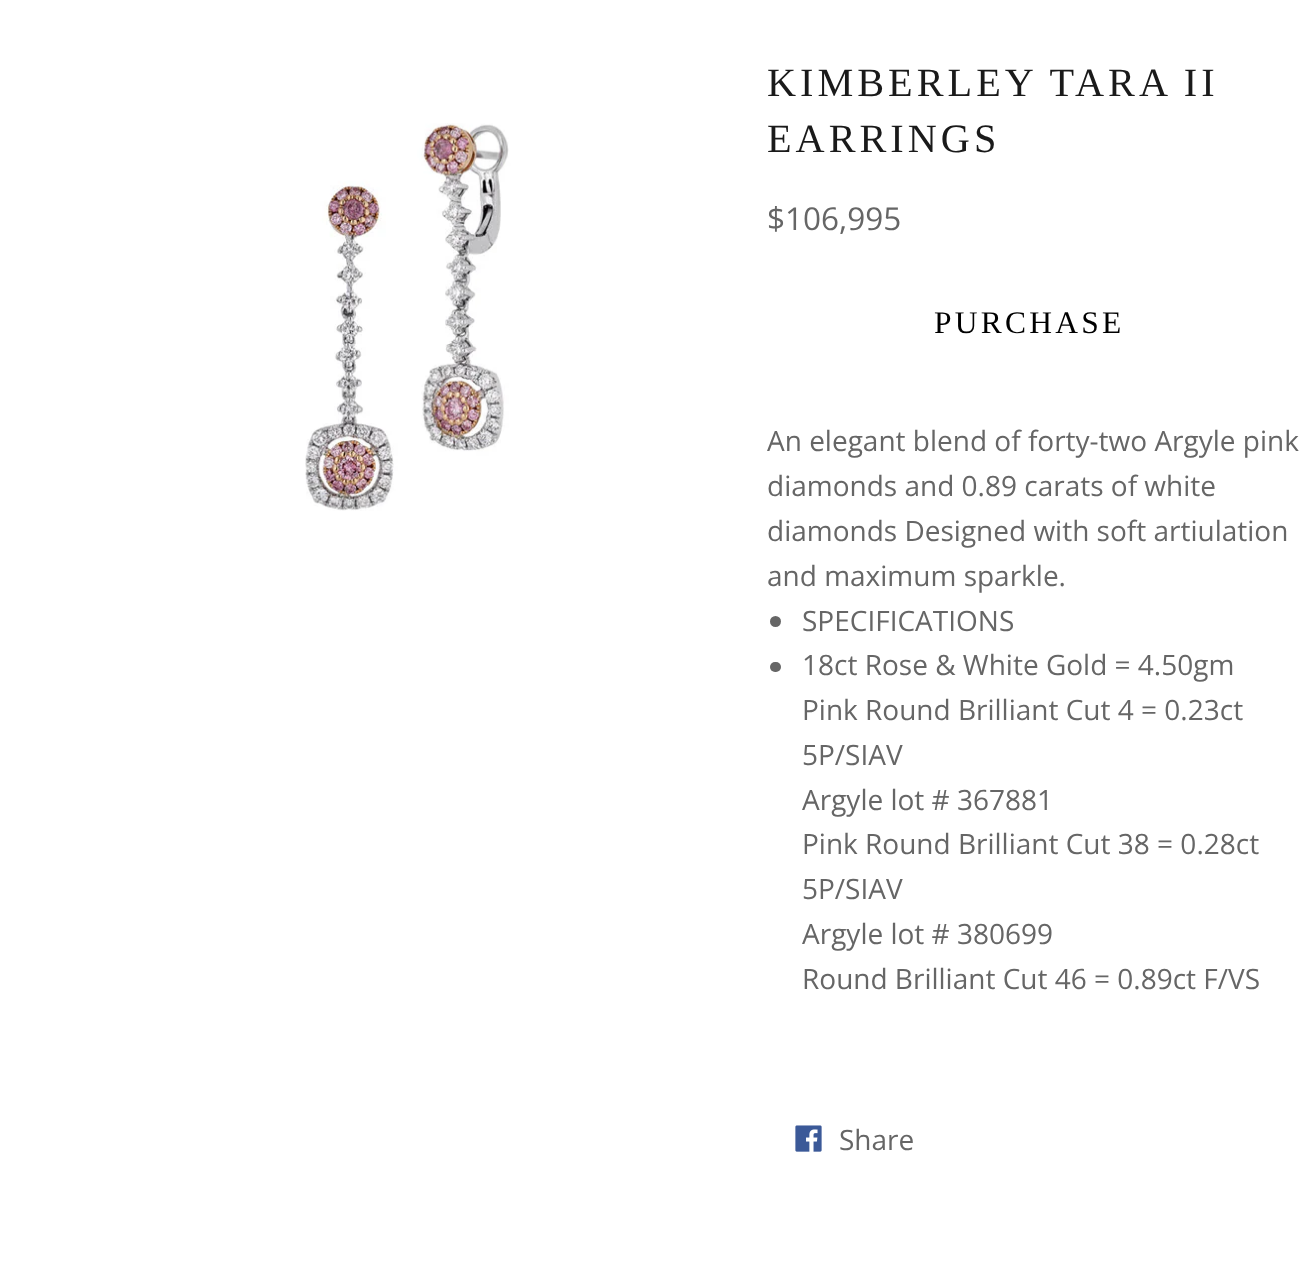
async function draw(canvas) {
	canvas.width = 1313;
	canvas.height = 1285;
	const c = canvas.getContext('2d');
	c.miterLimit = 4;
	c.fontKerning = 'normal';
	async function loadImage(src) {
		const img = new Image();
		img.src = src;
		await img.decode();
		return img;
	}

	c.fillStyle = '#fff';
	c.fillRect(0, 0, 1313, 1285);
	c.font = '28px Open Sans';
	c.fillStyle = '#666';
	c.fillText('An elegant blend of forty-two Argyle pink', 767, 451);
	c.drawImage(await loadImage('img1.png'), 305, 123, 462, 388);
	c.letterSpacing = '4px';
	c.font = '40.25px Liberation Serif';
	c.fillStyle = '#1a1a1a';
	c.fillText('KIMBERLEY TARA II', 767, 96);
	c.fillText('EARRINGS', 767, 152);
	c.letterSpacing = '0px';
	c.font = '31.5px Open Sans';
	c.fillStyle = '#666';
	c.fillText('$106,995', 767, 230);
	c.letterSpacing = '3.25px';
	c.font = '31.5px Liberation Serif';
	c.fillStyle = '#000';
	c.fillText('PURCHASE', 934, 333);
	c.letterSpacing = '0px';
	c.font = '28px Open Sans';
	c.fillStyle = '#666';
	for (const [text, x, y] of [
		['diamonds and 0.89 carats of white', 767, 496],
		['diamonds Designed with soft artiulation', 767, 541],
		['and maximum sparkle.', 767, 586],
	]) {
		c.fillText(text, x, y);
	}
	c.beginPath();
	c.arc(775.5, 621.5, 5.5, 0, 2 * Math.PI);
	c.fill();
	c.fillText('SPECIFICATIONS', 802, 631);
	c.beginPath();
	c.roundRect(770, 662, 11, 10, 5);
	c.fill();
	for (const [text, x, y] of [
		['18ct Rose & White Gold = 4.50gm', 802, 675],
		['Pink Round Brilliant Cut 4 = 0.23ct', 802, 720],
		['5P/SIAV', 802, 765],
		['Argyle lot # 367881', 802, 810],
		['Pink Round Brilliant Cut 38 = 0.28ct', 802, 854],
		['5P/SIAV', 802, 899],
		['Argyle lot # 380699', 802, 944],
		['Round Brilliant Cut 46 = 0.89ct F/VS', 802, 989],
	]) {
		c.fillText(text, x, y);
	}
	c.drawImage(await loadImage('img2.png'), 795, 1125, 27, 27);
	c.fillText('Share', 839, 1150);
}

draw(document.querySelector('canvas'));
